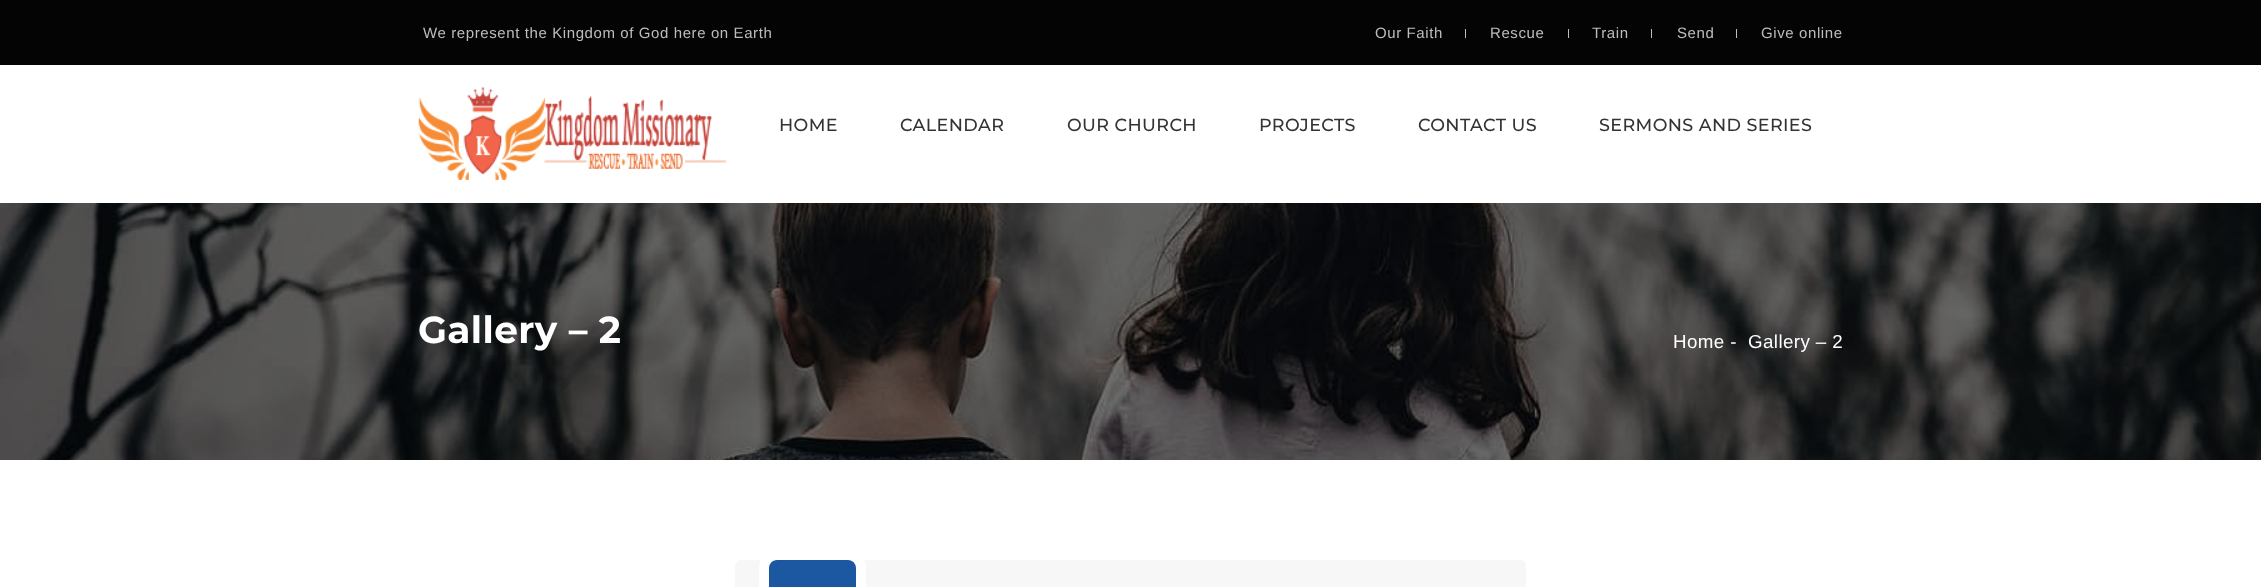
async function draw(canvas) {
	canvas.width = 2261;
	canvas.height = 587;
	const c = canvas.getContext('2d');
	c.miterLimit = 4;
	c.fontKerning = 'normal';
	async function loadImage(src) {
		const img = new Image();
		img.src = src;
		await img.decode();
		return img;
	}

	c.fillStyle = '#fff';
	c.fillRect(0, 0, 2261, 587);
	c.fillStyle = '#040404';
	c.fillRect(0, 0, 2261, 65);
	c.letterSpacing = '0.6px';
	c.font = '15px Arimo';
	c.fillStyle = '#bdbdbd';
	c.fillText('We represent the Kingdom of God here on Earth', 423, 38);
	c.fillText('Our Faith', 1375, 38);
	c.fillRect(1465, 29, 1, 9);
	c.fillText('Rescue', 1490, 38);
	c.fillRect(1568, 29, 1, 9);
	c.fillText('Train', 1592, 38);
	c.fillRect(1651, 29, 1, 9);
	c.fillText('Send', 1677, 38);
	c.fillRect(1736, 29, 1, 9);
	c.fillText('Give online', 1761, 38);
	c.drawImage(await loadImage('img1.png'), 418, 87, 309, 93);
	c.letterSpacing = '0.4px';
	c.font = '500 17.5px Montserrat';
	c.fillStyle = '#333';
	for (const [text, x, y] of [
		['HOME', 779, 131],
		['CALENDAR', 900, 131],
		['OUR CHURCH', 1067, 131],
		['PROJECTS', 1259, 131],
		['CONTACT US', 1418, 131],
		['SERMONS AND SERIES', 1599, 131],
	]) {
		c.fillText(text, x, y);
	}
	c.drawImage(await loadImage('img2.png'), 0, 203, 2261, 257);
	c.font = 'bold 37.5px Montserrat';
	c.fillStyle = '#fff';
	c.fillText('Gallery – 2', 418, 343);
	c.font = '18.75px Arimo';
	c.fillText('Home -', 1673, 348);
	c.fillText('Gallery – 2', 1748, 348);
	c.fillStyle = '#f7f7f7';
	c.beginPath();
	c.roundRect(735, 560, 791, 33, 6);
	c.fill();
	c.fillStyle = '#1c57a1';
	c.beginPath();
	c.roundRect(769, 560, 87, 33, 6);
	c.fill();
	c.beginPath();
	c.roundRect(764, 555, 97, 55, 13);
	c.strokeStyle = '#fff';
	c.lineWidth = 10;
	c.stroke();
}

draw(document.querySelector('canvas'));
